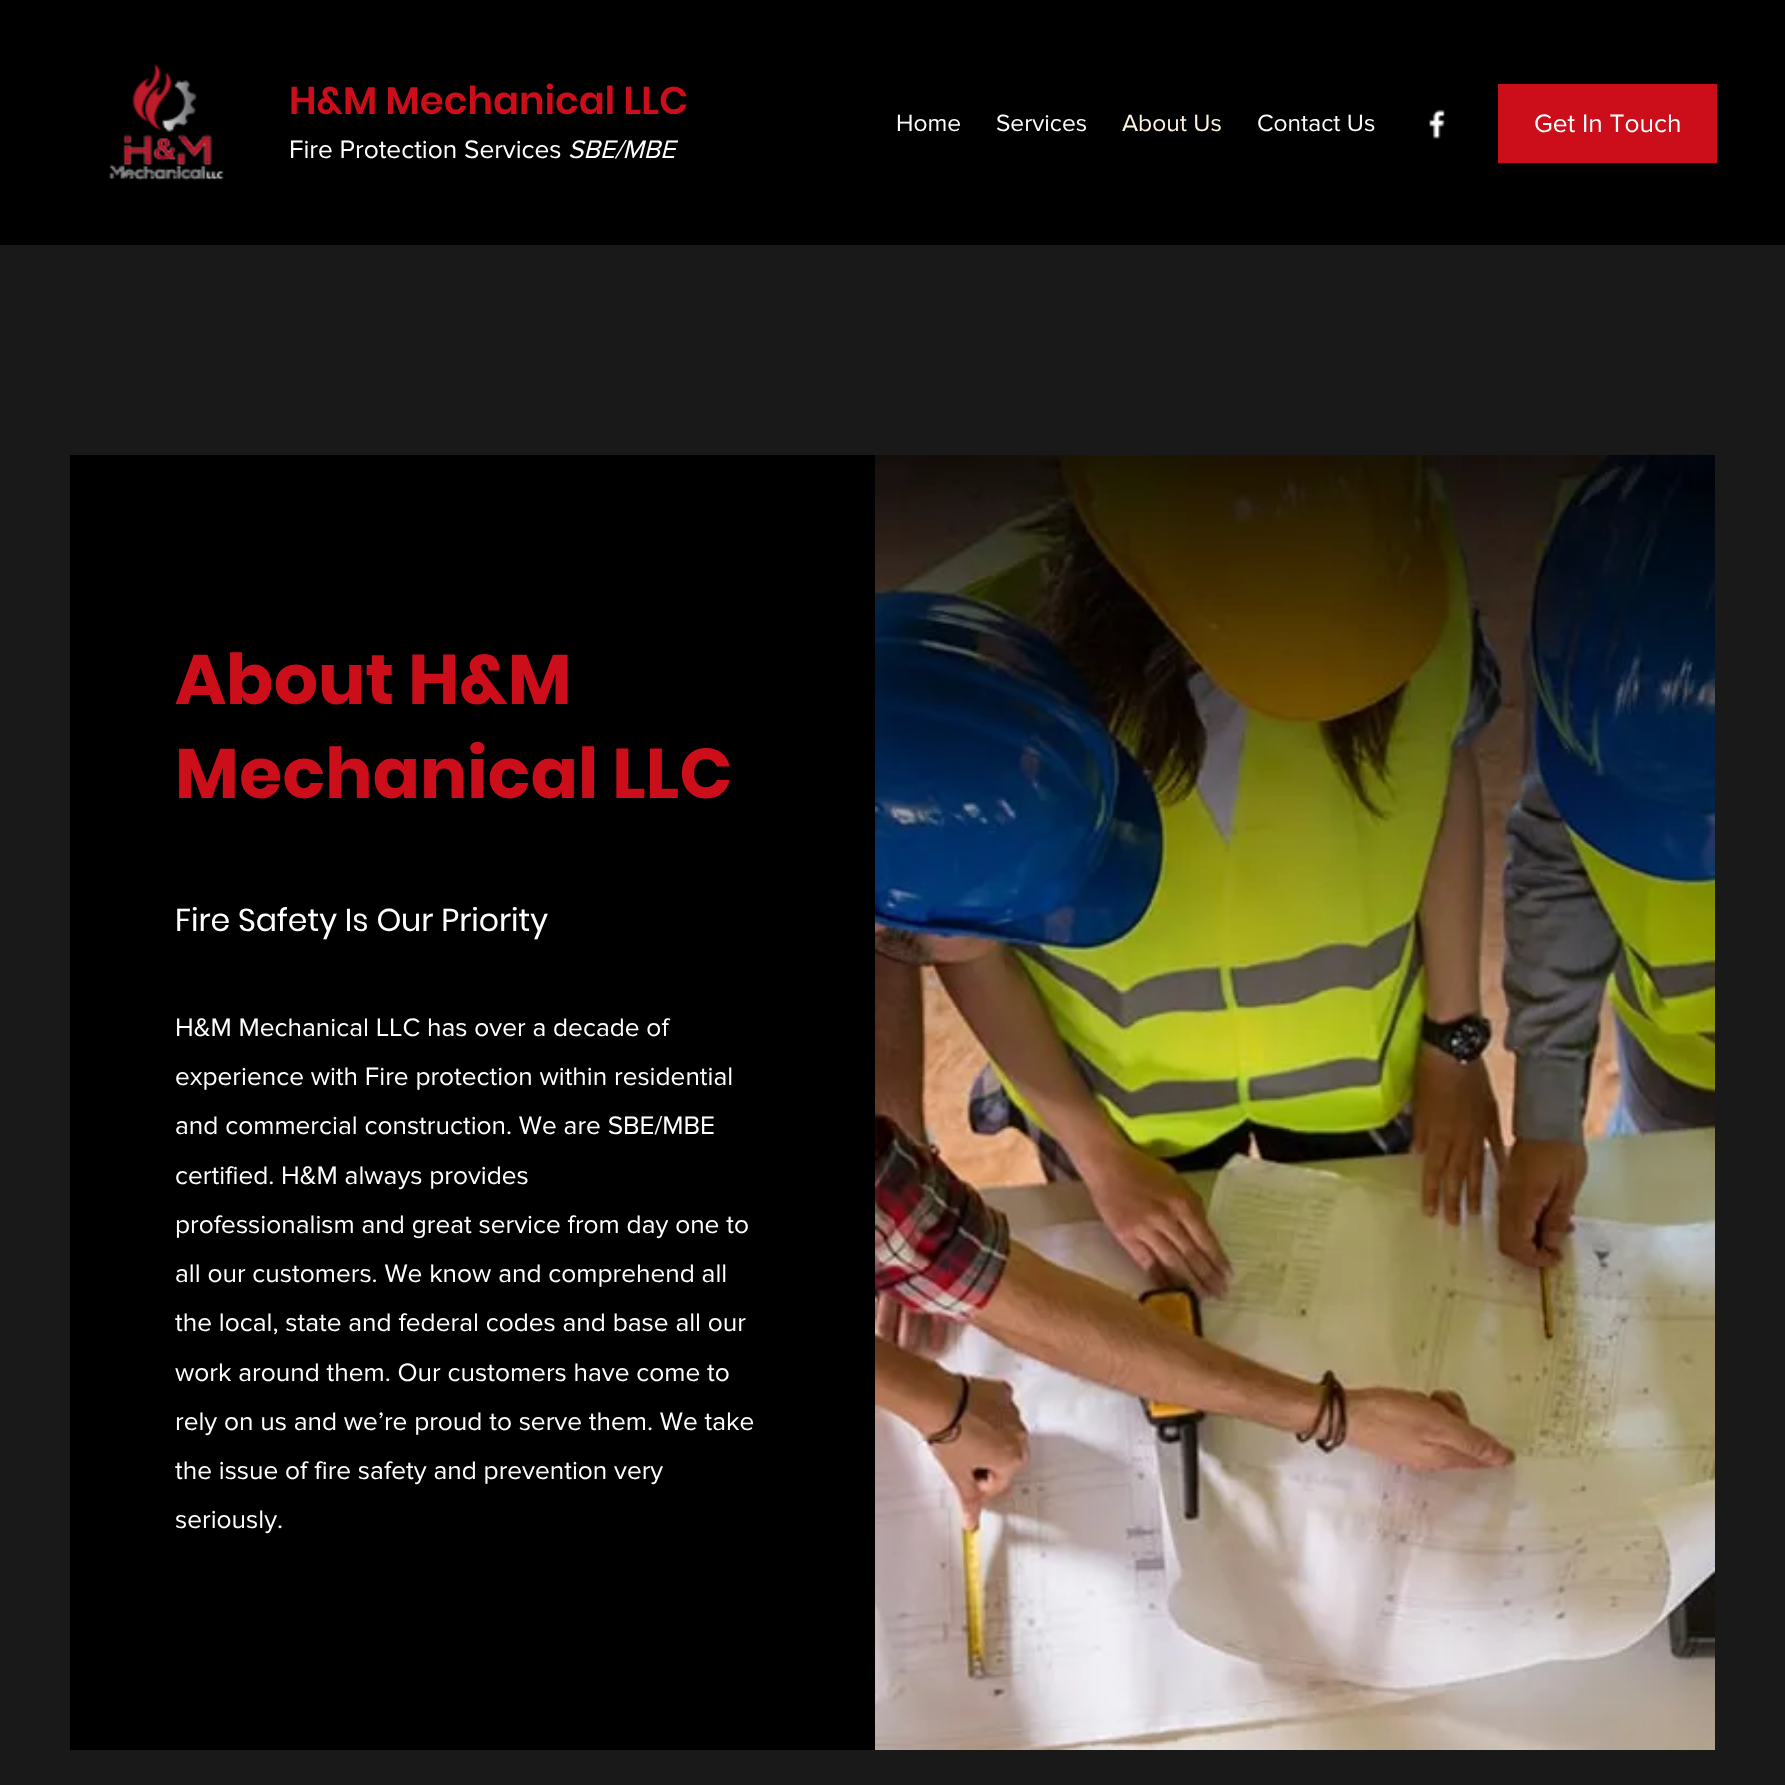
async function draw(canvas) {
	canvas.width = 1785;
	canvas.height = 1785;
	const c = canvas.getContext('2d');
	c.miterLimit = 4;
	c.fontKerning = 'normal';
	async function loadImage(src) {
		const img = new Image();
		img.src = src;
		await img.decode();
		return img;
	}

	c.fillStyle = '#191919';
	c.fillRect(0, 0, 1785, 1785);
	c.fillStyle = '#000';
	c.fillRect(0, 0, 1785, 245);
	c.drawImage(await loadImage('img1.png'), 108, 64, 117, 117);
	c.font = '600 38.5px Poppins';
	c.fillStyle = '#cb0e1a';
	c.fillText('H&M Mechanical LLC', 289, 114);
	c.font = '26.25px "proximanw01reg"';
	c.fillStyle = '#fff';
	c.fillText('Fire Protection Services', 289, 158);
	c.font = 'italic 26.25px "proximanw01reg"';
	c.fillText('SBE/MBE', 568, 158);
	c.font = '24.5px "proximanw01reg"';
	c.fillText('Home', 896, 131);
	c.fillText('Services', 996, 131);
	c.fillStyle = '#fff5e2';
	c.fillText('About Us', 1122, 131);
	c.fillStyle = '#fff';
	c.fillText('Contact Us', 1257, 131);
	c.drawImage(await loadImage('img2.png'), 1429, 109, 16, 30);
	c.fillStyle = '#cb0e1a';
	c.fillRect(1498, 84, 219, 79);
	c.font = '26.25px "proximanw01reg"';
	c.fillStyle = '#fff';
	c.fillText('Get In Touch', 1534, 132);
	c.fillStyle = '#000';
	c.fillRect(70, 455, 805, 1295);
	c.font = 'bold 70px Poppins';
	c.fillStyle = '#cb0e1a';
	c.fillText('About H&M', 175, 704);
	c.fillText('Mechanical LLC', 175, 798);
	c.font = '31.5px Poppins';
	c.fillStyle = '#fff';
	c.fillText('Fire Safety Is Our Priority', 175, 931);
	c.font = '26.25px "proximanw01reg"';
	for (const [text, x, y] of [
		['H&M Mechanical LLC has over a decade of', 175, 1036],
		['experience with Fire protection within residential', 175, 1085],
		['and commercial construction. We are SBE/MBE', 175, 1134],
		['certified. H&M always provides', 175, 1184],
		['professionalism and great service from day one to', 175, 1233],
		['all our customers. We know and comprehend all', 175, 1282],
		['the local, state and federal codes and base all our', 175, 1331],
		['work around them. Our customers have come to', 175, 1381],
		['rely on us and we’re proud to serve them. We take', 175, 1430],
		['the issue of fire safety and prevention very', 175, 1479],
		['seriously.', 175, 1528],
	]) {
		c.fillText(text, x, y);
	}
	c.drawImage(await loadImage('img3.png'), 875, 455, 840, 1295);
}

draw(document.querySelector('canvas'));
